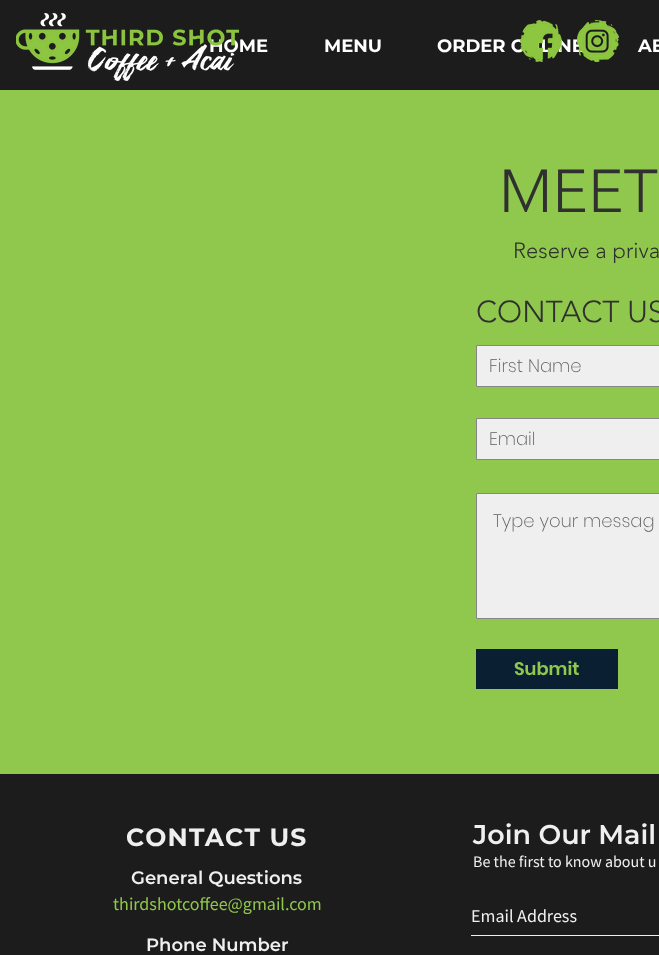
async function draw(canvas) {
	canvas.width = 659;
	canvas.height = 955;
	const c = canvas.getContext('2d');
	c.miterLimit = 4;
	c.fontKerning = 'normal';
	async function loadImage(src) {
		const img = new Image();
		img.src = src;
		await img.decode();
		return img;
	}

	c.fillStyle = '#8fc84d';
	c.fillRect(0, 0, 659, 955);
	c.fillStyle = '#1c1c1c';
	c.fillRect(0, 0, 659, 90);
	c.font = 'bold 18px Montserrat';
	c.fillStyle = '#fff';
	c.fillText('HOME', 209, 52);
	c.drawImage(await loadImage('img1.png'), 16, 13, 223, 68);
	c.fillText('ORDER ONLINE', 437, 52);
	c.drawImage(await loadImage('img2.png'), 520, 20, 42, 42);
	c.drawImage(await loadImage('img3.png'), 577, 20, 42, 42);
	c.fillText('MENU', 324, 52);
	c.fillText('AB', 638, 52);
	c.font = '300 60px "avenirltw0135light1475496"';
	c.fillStyle = '#303030';
	c.fillText('MEET', 499, 212);
	c.font = '300 22px "avenirltw0135light1475496"';
	c.fillText('Reserve a priva', 513, 258);
	c.font = '300 30px "avenirltw0135light1475496"';
	c.fillText('CONTACT US', 476, 322);
	c.fillStyle = '#efefef';
	c.beginPath();
	c.rect(476.5, 345.5, 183, 41);
	c.fill();
	c.strokeStyle = '#868686';
	c.stroke();
	c.font = '200 18px Poppins';
	c.fillStyle = '#606060';
	c.fillText('First Name', 489, 372);
	c.fillStyle = '#efefef';
	c.beginPath();
	c.rect(476.5, 418.5, 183, 41);
	c.fill();
	c.stroke();
	c.fillStyle = '#606060';
	c.fillText('Email', 489, 445);
	c.fillStyle = '#efefef';
	c.beginPath();
	c.rect(476.5, 493.5, 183, 125);
	c.fill();
	c.stroke();
	c.fillStyle = '#606060';
	c.fillText('Type your messag', 493, 527);
	c.fillStyle = '#0a2032';
	c.fillRect(476, 649, 142, 40);
	c.font = '600 18px Poppins';
	c.fillStyle = '#8fc84d';
	c.fillText('Submit', 514, 675);
	c.fillStyle = '#1c1c1c';
	c.fillRect(0, 774, 659, 181);
	c.letterSpacing = '1.25px';
	c.font = 'bold 25px Montserrat';
	c.fillStyle = '#efefef';
	c.fillText('CONTACT US', 126, 846);
	c.letterSpacing = '0px';
	c.font = '600 18px Montserrat';
	c.fillText('General Questions', 131, 884);
	c.font = '18px Source Sans Pro';
	c.fillStyle = '#8fc84d';
	c.fillText('thirdshotcoffee@gmail.com', 113, 910);
	c.font = '600 18px Montserrat';
	c.fillStyle = '#efefef';
	c.fillText('Phone Number', 146, 951);
	c.font = '600 27px Montserrat';
	c.fillText('Join Our Mail', 473, 844);
	c.font = '16px Source Sans Pro';
	c.fillText('Be the first to know about u', 473, 867);
	c.fillRect(471, 935, 188, 1);
	c.font = '18px Source Sans Pro';
	c.fillText('Email Address', 471, 922);
}

draw(document.querySelector('canvas'));
